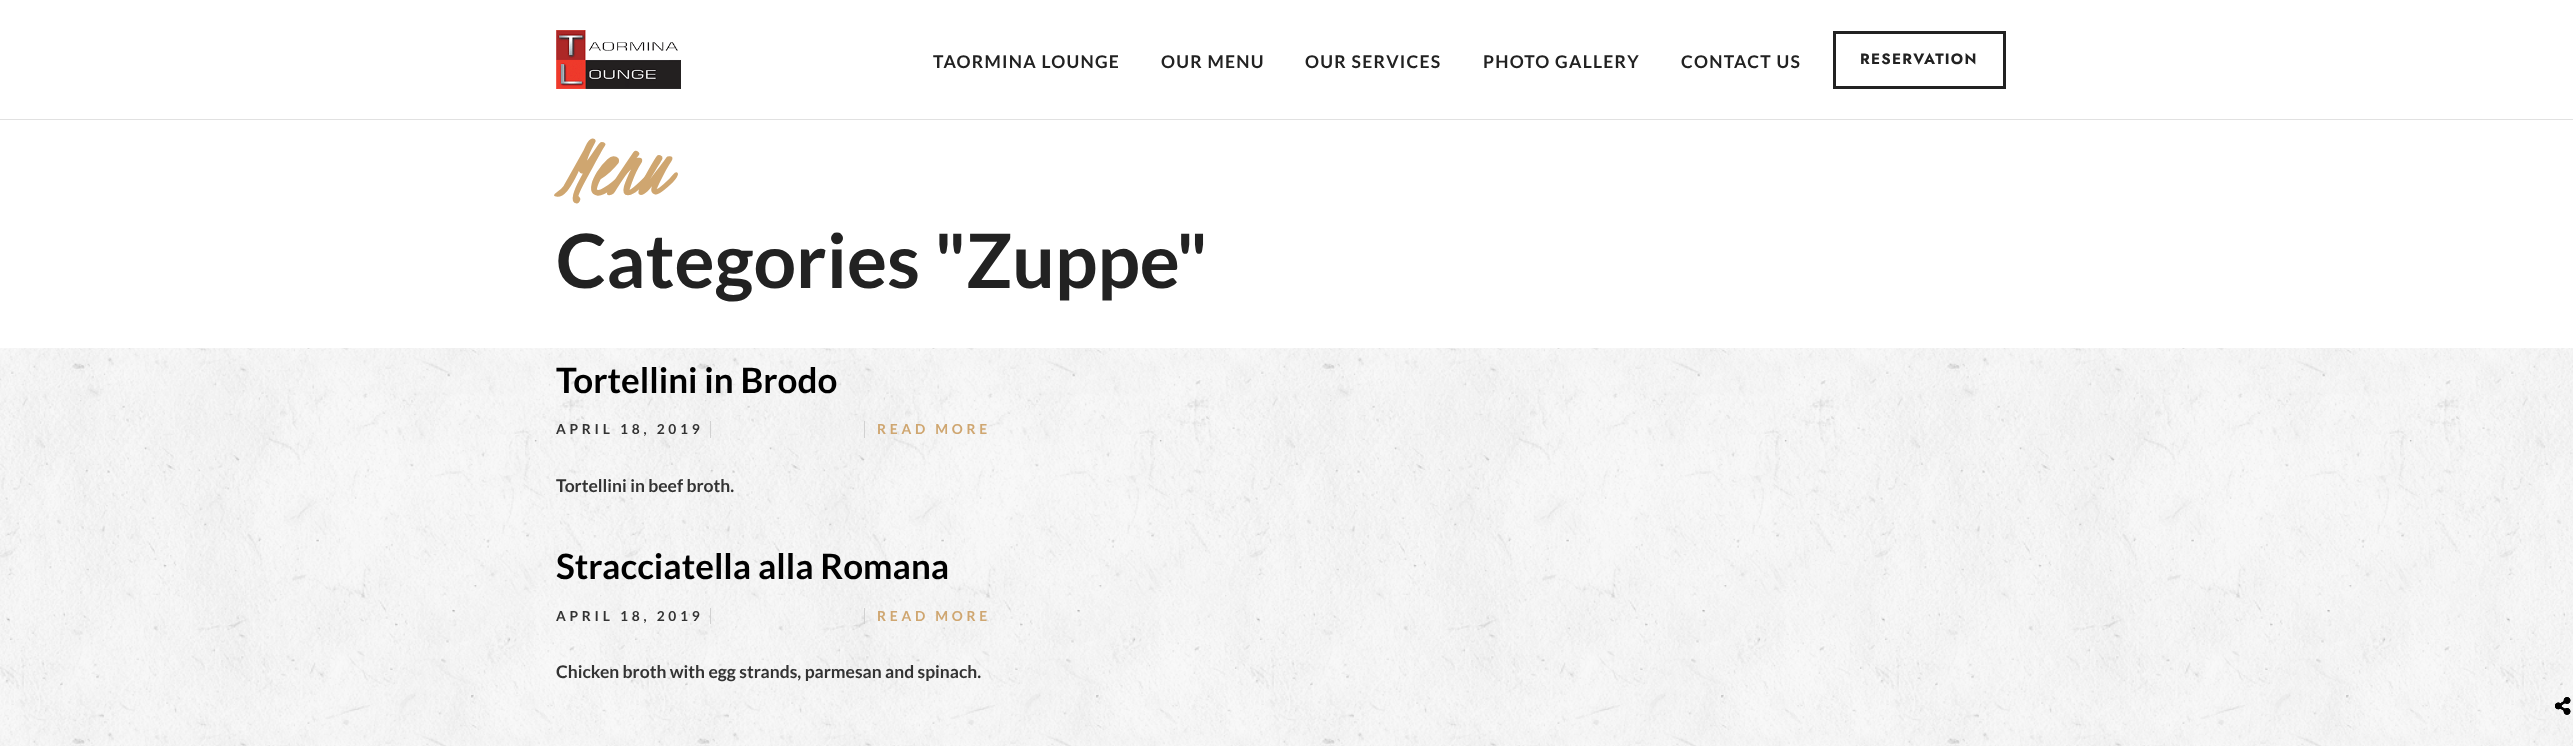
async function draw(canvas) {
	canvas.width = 2573;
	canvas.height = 746;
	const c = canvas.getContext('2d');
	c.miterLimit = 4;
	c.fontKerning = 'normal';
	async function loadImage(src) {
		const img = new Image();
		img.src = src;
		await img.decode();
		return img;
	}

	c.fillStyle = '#fff';
	c.fillRect(0, 0, 2573, 746);
	c.drawImage(await loadImage('img1.png'), 0, 348, 2573, 398);
	c.fillStyle = '#e1e1e1';
	c.fillRect(0, 119, 2573, 1);
	c.drawImage(await loadImage('img2.png'), 556, 30, 125, 59);
	c.letterSpacing = '1.25px';
	c.font = 'bold 17.5px Lato';
	c.fillStyle = '#222';
	for (const [text, x, y] of [
		['TAORMINA LOUNGE', 933, 68],
		['OUR MENU', 1161, 68],
		['OUR SERVICES', 1305, 68],
		['PHOTO GALLERY', 1483, 68],
		['CONTACT US', 1681, 68],
	]) {
		c.fillText(text, x, y);
	}
	c.strokeStyle = '#222';
	c.lineWidth = 3;
	c.strokeRect(1834.5, 32.5, 170, 55);
	c.font = 'bold 15px Jost';
	c.fillText('RESERVATION', 1860, 64);
	c.letterSpacing = '0px';
	c.font = 'italic bold 88px Kristi';
	c.fillStyle = '#cfa670';
	c.fillText('Menu', 556, 194);
	c.font = 'bold 75px Lato';
	c.fillStyle = '#222';
	c.fillText('Categories "Zuppe"', 556, 288);
	c.font = 'bold 35px Lato';
	c.fillStyle = '#000';
	c.fillText('Tortellini in Brodo', 556, 393);
	c.letterSpacing = '3.75px';
	c.font = 'bold 13.75px Lato';
	c.fillStyle = '#333';
	c.fillText('APRIL 18, 2019', 556, 434);
	c.fillStyle = '#d1d1d1';
	c.fillRect(710, 421, 1, 17);
	c.fillStyle = '#cfa670';
	c.fillText('READ MORE', 877, 434);
	c.fillStyle = '#d1d1d1';
	c.fillRect(864, 421, 1, 17);
	c.letterSpacing = '0px';
	c.font = 'bold 17.5px Lato';
	c.fillStyle = '#333';
	c.fillText('Tortellini in beef broth.', 556, 492);
	c.drawImage(await loadImage('img3.png'), 2555, 697, 16, 18);
	c.font = 'bold 35px Lato';
	c.fillStyle = '#000';
	c.fillText('Stracciatella alla Romana', 556, 579);
	c.letterSpacing = '3.75px';
	c.font = 'bold 13.75px Lato';
	c.fillStyle = '#333';
	c.fillText('APRIL 18, 2019', 556, 621);
	c.fillStyle = '#d1d1d1';
	c.fillRect(710, 608, 1, 16);
	c.fillStyle = '#cfa670';
	c.fillText('READ MORE', 877, 621);
	c.fillStyle = '#d1d1d1';
	c.fillRect(864, 608, 1, 16);
	c.letterSpacing = '0px';
	c.font = 'bold 17.5px Lato';
	c.fillStyle = '#333';
	c.fillText('Chicken broth with egg strands, parmesan and spinach.', 556, 678);
	c.drawImage(await loadImage('img4.png'), 2555, 697, 16, 18);
	c.drawImage(await loadImage('img5.png'), 2555, 697, 16, 18);
}

draw(document.querySelector('canvas'));
